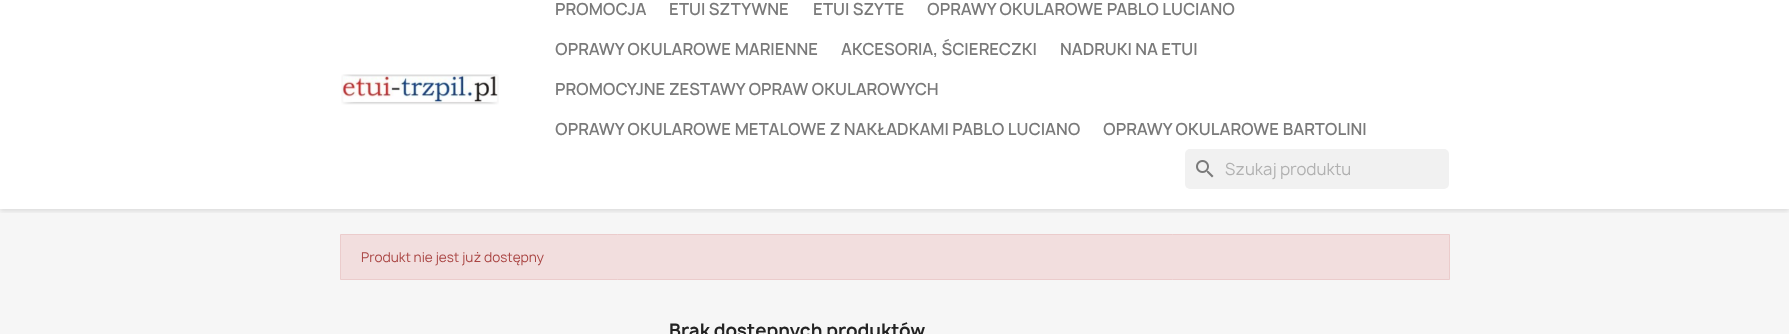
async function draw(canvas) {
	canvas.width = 1789;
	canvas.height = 334;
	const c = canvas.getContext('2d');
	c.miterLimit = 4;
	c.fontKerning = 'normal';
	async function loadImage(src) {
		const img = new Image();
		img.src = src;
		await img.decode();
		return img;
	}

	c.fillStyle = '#fff';
	c.fillRect(0, 0, 1789, 334);
	c.fillStyle = '#f6f6f6';
	c.fillRect(0, 209, 1789, 125);
	c.save();
	c.beginPath();
	c.rect(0, 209, 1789, 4);
	c.clip();
	c.fillStyle = '#0000001c';
	c.filter = 'blur(2.5px)';
	c.beginPath();
	c.rect(0, -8, 1789, 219);
	c.fill();
	c.filter = 'none';
	c.restore();
	c.drawImage(await loadImage('img1.png'), 341, 74, 158, 31);
	c.font = '600 16px Manrope';
	c.fillStyle = '#7a7a7a';
	for (const [text, x, y] of [
		['PROMOCJA', 555, 15],
		['ETUI SZTYWNE', 669, 15],
		['ETUI SZYTE', 813, 15],
		['OPRAWY OKULAROWE PABLO LUCIANO', 927, 15],
		['OPRAWY OKULAROWE MARIENNE', 555, 55],
		['AKCESORIA, ŚCIERECZKI', 841, 55],
		['NADRUKI NA ETUI', 1060, 55],
		['PROMOCYJNE ZESTAWY OPRAW OKULAROWYCH', 555, 95],
		['OPRAWY OKULAROWE METALOWE Z NAKŁADKAMI PABLO LUCIANO', 555, 135],
		['OPRAWY OKULAROWE BARTOLINI', 1103, 135],
	]) {
		c.fillText(text, x, y);
	}
	c.fillStyle = '#f1f1f1';
	c.beginPath();
	c.roundRect(1185, 149, 264, 40, 5);
	c.fill();
	c.drawImage(await loadImage('img2.png'), 1196, 160, 18, 18);
	c.font = '16px Manrope';
	c.fillStyle = '#b1b1b1';
	c.fillText('Szukaj produktu', 1225, 175);
	c.fillStyle = '#f2dede';
	c.beginPath();
	c.rect(340.5, 234.5, 1109, 45);
	c.fill();
	c.strokeStyle = '#ebcccc';
	c.stroke();
	c.font = '13px Manrope';
	c.fillStyle = '#a94442';
	c.fillText('Produkt nie jest już dostępny', 361, 262);
	c.font = 'bold 18px Manrope';
	c.fillStyle = '#232323';
	c.fillText('Brak dostępnych produktów.', 669, 337);
}

draw(document.querySelector('canvas'));
